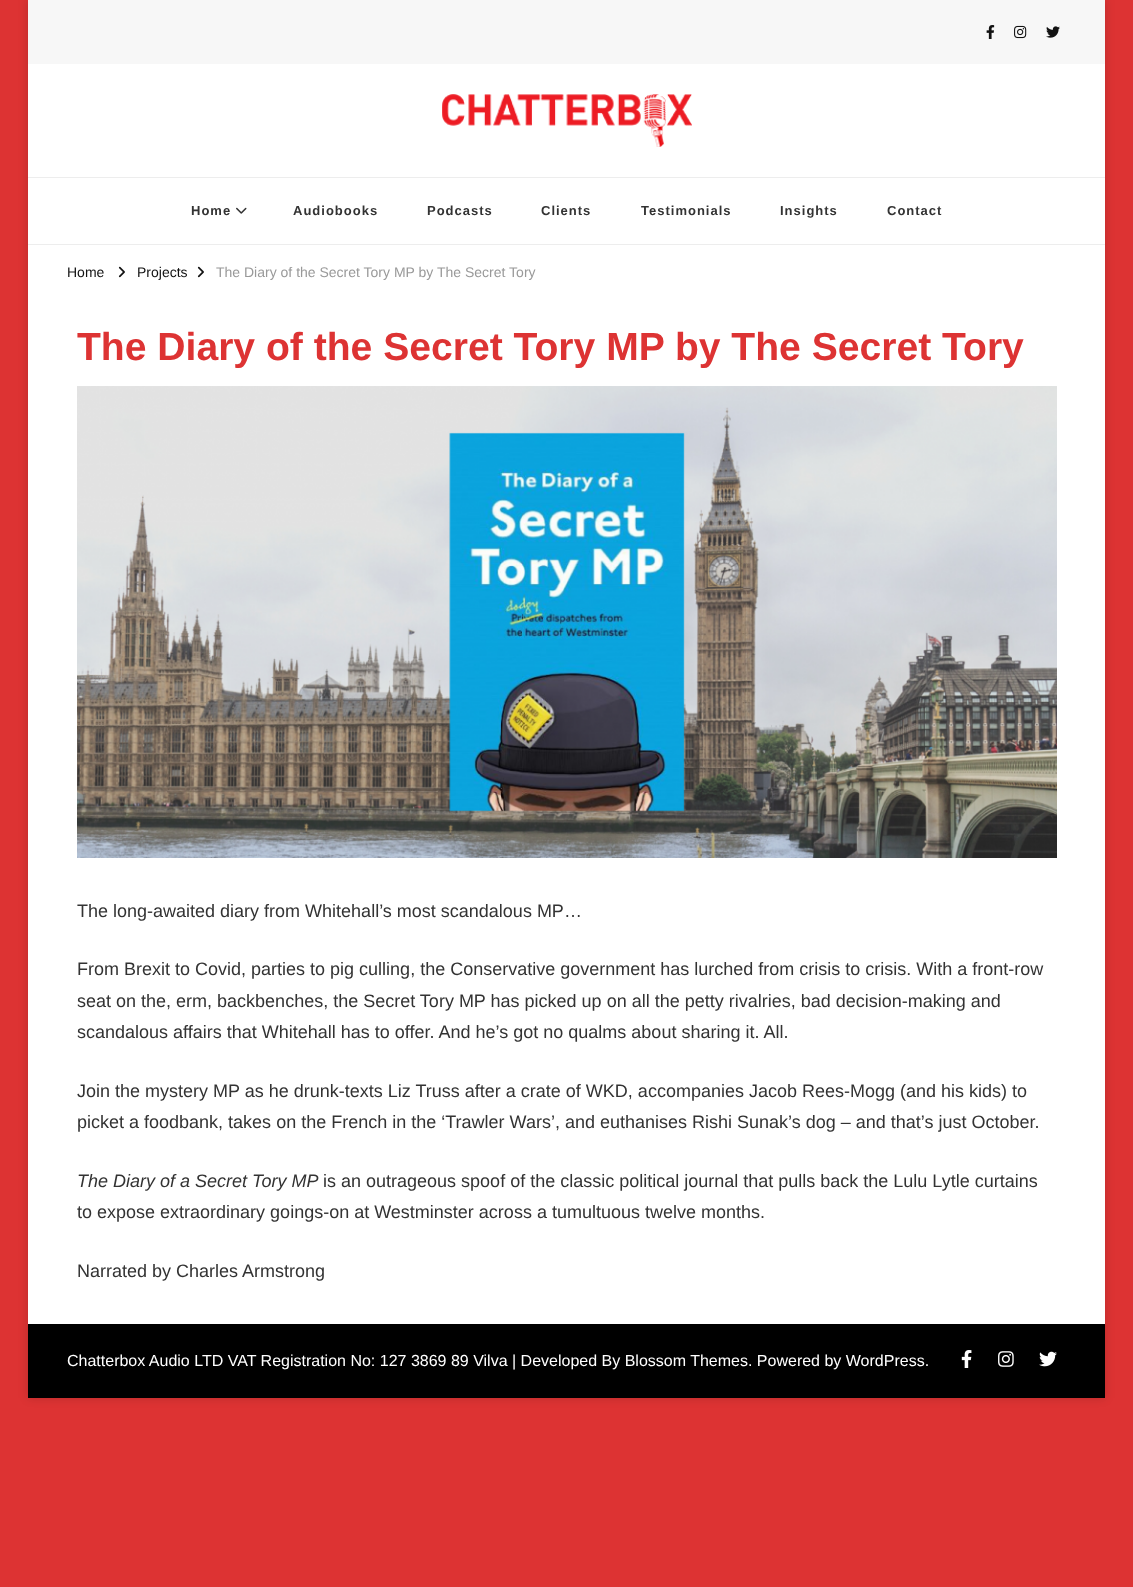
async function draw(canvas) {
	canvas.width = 1133;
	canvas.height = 1587;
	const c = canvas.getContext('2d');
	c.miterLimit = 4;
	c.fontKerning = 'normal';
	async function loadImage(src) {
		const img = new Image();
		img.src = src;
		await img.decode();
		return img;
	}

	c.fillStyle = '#d33';
	c.fillRect(0, 0, 1133, 1587);
	c.fillStyle = '#00000029';
	c.filter = 'blur(5px)';
	c.beginPath();
	c.rect(28, 0, 1077, 1398);
	c.fill();
	c.filter = 'none';
	c.fillStyle = '#fff';
	c.fillRect(28, 64, 1077, 1260);
	c.fillStyle = '#f7f7f7';
	c.fillRect(28, 0, 1077, 64);
	c.drawImage(await loadImage('img1.png'), 986, 25, 9, 14);
	c.drawImage(await loadImage('img2.png'), 1014, 25, 13, 14);
	c.drawImage(await loadImage('img3.png'), 1046, 26, 14, 12);
	c.drawImage(await loadImage('img4.png'), 442, 94, 250, 53);
	c.fillStyle = '#ededed';
	c.fillRect(28, 177, 1077, 1);
	c.fillRect(28, 244, 1077, 1);
	c.letterSpacing = '1px';
	c.font = 'bold 13px Liberation Sans';
	c.fillStyle = '#333';
	c.fillText('Home', 191, 215);
	c.drawImage(await loadImage('img5.png'), 236, 207, 11, 7);
	for (const [text, x, y] of [
		['Audiobooks', 293, 215],
		['Podcasts', 427, 215],
		['Clients', 541, 215],
		['Testimonials', 641, 215],
		['Insights', 780, 215],
		['Contact', 887, 215],
	]) {
		c.fillText(text, x, y);
	}
	c.letterSpacing = '0px';
	c.font = '14px Liberation Sans';
	c.fillStyle = '#121212';
	c.fillText('Home', 67, 277);
	c.drawImage(await loadImage('img6.png'), 118, 266, 7, 12);
	c.fillText('Projects', 137, 277);
	c.drawImage(await loadImage('img6.png'), 197, 266, 7, 12);
	c.fillStyle = '#999';
	c.fillText('The Diary of the Secret Tory MP by The Secret Tory', 216, 277);
	c.font = 'bold 39.1px Liberation Sans';
	c.fillStyle = '#d33';
	c.fillText('The Diary of the Secret Tory MP by The Secret Tory', 77, 360);
	c.drawImage(await loadImage('img7.png'), 77, 386, 980, 472);
	c.font = '18px Liberation Sans';
	c.fillStyle = '#333';
	for (const [text, x, y] of [
		['The long-awaited diary from Whitehall’s most scandalous MP…', 77, 917],
		['From Brexit to Covid, parties to pig culling, the Conservative government has lurched from crisis to crisis. With a front-row', 77, 975],
		['seat on the, erm, backbenches, the Secret Tory MP has picked up on all the petty rivalries, bad decision-making and', 77, 1007],
		['scandalous affairs that Whitehall has to offer. And he’s got no qualms about sharing it. All.', 77, 1038],
		['Join the mystery MP as he drunk-texts Liz Truss after a crate of WKD, accompanies Jacob Rees-Mogg (and his kids) to', 77, 1097],
		['picket a foodbank, takes on the French in the ‘Trawler Wars’, and euthanises Rishi Sunak’s dog – and that’s just October.', 77, 1128],
	]) {
		c.fillText(text, x, y);
	}
	c.font = 'italic 18px Liberation Sans';
	c.fillText('The Diary of a Secret Tory MP', 77, 1187);
	c.font = '18px Liberation Sans';
	for (const [text, x, y] of [
		['is an outrageous spoof of the classic political journal that pulls back the Lulu Lytle curtains', 323, 1187],
		['to expose extraordinary goings-on at Westminster across a tumultuous twelve months.', 77, 1218],
		['Narrated by Charles Armstrong', 77, 1277],
	]) {
		c.fillText(text, x, y);
	}
	c.fillStyle = '#000';
	c.fillRect(28, 1324, 1077, 74);
	c.font = '16px Liberation Sans';
	c.fillStyle = '#fff';
	c.fillText('Chatterbox Audio LTD VAT Registration No: 127 3869 89 Vilva | Developed By Blossom Themes. Powered by WordPress.', 67, 1366);
	c.drawImage(await loadImage('img8.png'), 961, 1350, 11, 18);
	c.drawImage(await loadImage('img9.png'), 998, 1351, 16, 16);
	c.drawImage(await loadImage('img10.png'), 1039, 1351, 18, 16);
}

draw(document.querySelector('canvas'));
